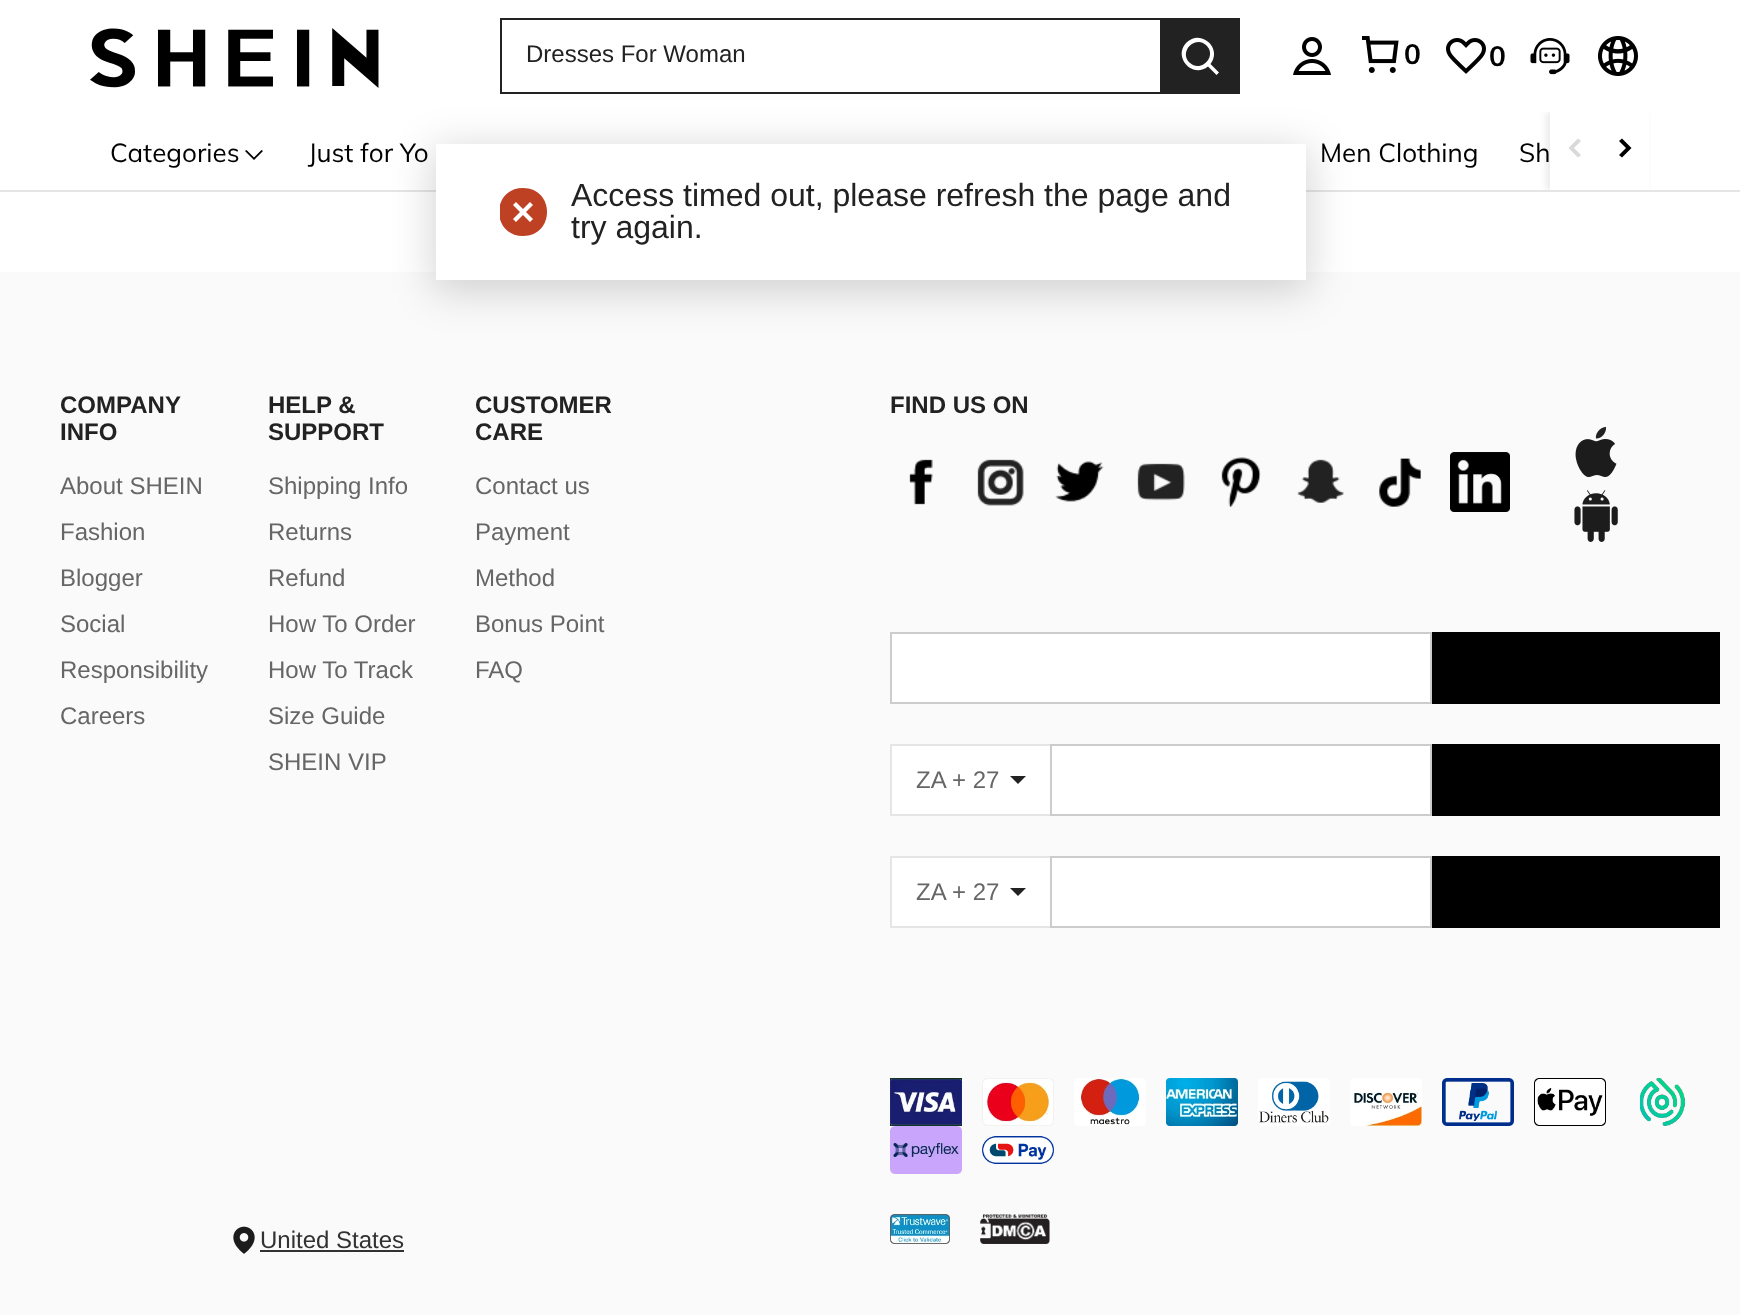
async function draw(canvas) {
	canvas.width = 1740;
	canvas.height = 1315;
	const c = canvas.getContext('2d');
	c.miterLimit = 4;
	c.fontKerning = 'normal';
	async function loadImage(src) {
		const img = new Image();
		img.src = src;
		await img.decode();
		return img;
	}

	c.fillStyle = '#fff';
	c.fillRect(0, 0, 1740, 1315);
	c.drawImage(await loadImage('img1.png'), 90, 28, 289, 60);
	for (const [x, y, w, h, color] of [
		[500, 18, 660, 2, '#222'],
		[500, 92, 660, 2, '#222'],
		[500, 18, 2, 76, '#222'],
	]) {
		c.fillStyle = color;
		c.fillRect(x, y, w, h);
	}
	c.font = '24px Liberation Sans';
	c.fillText('Dresses For Woman', 526, 62);
	c.fillRect(1160, 18, 80, 76);
	c.fillStyle = '#fff';
	c.beginPath();
	c.moveTo(1186.5, 42.5);
	c.bezierCurveTo(1200.5, 28.5, 1223, 48, 1210.5, 64);
	c.lineTo(1219, 72.5);
	c.lineTo(1216.5, 75);
	c.lineTo(1208, 66.5);
	c.bezierCurveTo(1192, 79, 1172.5, 56.5, 1186.5, 42.5);
	c.closePath();
	c.moveTo(1206.5, 45.5);
	c.bezierCurveTo(1195.5, 34.5, 1178.5, 51.5, 1189.5, 62.5);
	c.bezierCurveTo(1200.5, 73.5, 1217.5, 56.5, 1206.5, 45.5);
	c.closePath();
	c.fill('evenodd');
	c.drawImage(await loadImage('img2.png'), 1293, 37, 38, 38);
	c.drawImage(await loadImage('img3.png'), 1362, 36, 37, 37);
	c.font = 'bold 28px Muli';
	c.fillStyle = '#000';
	c.fillText('0', 1404, 64);
	c.drawImage(await loadImage('img4.png'), 1446, 38, 40, 36);
	c.fillText('0', 1489, 66);
	c.drawImage(await loadImage('img5.png'), 1530, 38, 40, 37);
	c.drawImage(await loadImage('img6.png'), 1598, 36, 40, 40);
	c.fillStyle = '#e5e5e5';
	c.fillRect(0, 190, 1740, 2);
	c.font = '26px Muli';
	c.fillStyle = '#000';
	c.fillText('Categories', 110, 162);
	c.beginPath();
	c.moveTo(261.5, 150);
	c.lineTo(263, 151);
	c.lineTo(254, 160);
	c.lineTo(245, 151);
	c.lineTo(246.5, 150);
	c.lineTo(254, 157.5);
	c.closePath();
	c.fill();
	for (const [text, x, y] of [
		['Just for Yo', 308, 162],
		['Men Clothing', 1320, 162],
		['Sh', 1519, 162],
	]) {
		c.fillText(text, x, y);
	}
	c.save();
	c.beginPath();
	c.rect(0, 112, 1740, 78);
	c.clip();
	c.fillStyle = '#00000014';
	c.filter = 'blur(3px)';
	c.beginPath();
	c.rect(1546, 112, 100, 78);
	c.fill();
	c.filter = 'none';
	c.restore();
	c.fillStyle = '#fff';
	c.fillRect(1550, 112, 99, 78);
	c.fillStyle = '#d9d9d9';
	c.beginPath();
	c.moveTo(1578, 138.5);
	c.lineTo(1581, 141);
	c.lineTo(1574, 148);
	c.lineTo(1581, 155);
	c.lineTo(1578, 157.5);
	c.lineTo(1568.5, 148);
	c.closePath();
	c.fill('evenodd');
	c.fillStyle = '#000';
	c.beginPath();
	c.moveTo(1619, 141);
	c.lineTo(1622, 138.5);
	c.lineTo(1631.5, 148);
	c.lineTo(1622, 157.5);
	c.lineTo(1619, 155);
	c.lineTo(1626, 148);
	c.closePath();
	c.fill('evenodd');
	c.fillStyle = '#fafafa';
	c.fillRect(0, 272, 1740, 1043);
	c.font = 'bold 24px Liberation Sans';
	c.fillStyle = '#222';
	c.fillText('COMPANY', 60, 413);
	c.fillText('INFO', 60, 440);
	c.font = '24px Liberation Sans';
	c.fillStyle = '#666';
	for (const [text, x, y] of [
		['About SHEIN', 60, 494],
		['Fashion', 60, 540],
		['Blogger', 60, 586],
		['Social', 60, 632],
		['Responsibility', 60, 678],
		['Careers', 60, 724],
	]) {
		c.fillText(text, x, y);
	}
	c.font = 'bold 24px Liberation Sans';
	c.fillStyle = '#222';
	c.fillText('HELP &', 268, 413);
	c.fillText('SUPPORT', 268, 440);
	c.font = '24px Liberation Sans';
	c.fillStyle = '#666';
	for (const [text, x, y] of [
		['Shipping Info', 268, 494],
		['Returns', 268, 540],
		['Refund', 268, 586],
		['How To Order', 268, 632],
		['How To Track', 268, 678],
		['Size Guide', 268, 724],
		['SHEIN VIP', 268, 770],
	]) {
		c.fillText(text, x, y);
	}
	c.font = 'bold 24px Liberation Sans';
	c.fillStyle = '#222';
	c.fillText('CUSTOMER', 475, 413);
	c.fillText('CARE', 475, 440);
	c.font = '24px Liberation Sans';
	c.fillStyle = '#666';
	for (const [text, x, y] of [
		['Contact us', 475, 494],
		['Payment', 475, 540],
		['Method', 475, 586],
		['Bonus Point', 475, 632],
		['FAQ', 475, 678],
	]) {
		c.fillText(text, x, y);
	}
	c.font = 'bold 24px Liberation Sans';
	c.fillStyle = '#222';
	c.fillText('FIND US ON', 890, 413);
	c.drawImage(await loadImage('img7.png'), 909, 459, 24, 46);
	c.drawImage(await loadImage('img8.png'), 977, 459, 47, 47);
	c.drawImage(await loadImage('img9.png'), 1055, 461, 49, 41);
	c.drawImage(await loadImage('img10.png'), 1137, 463, 48, 38);
	c.drawImage(await loadImage('img11.png'), 1221, 457, 40, 50);
	c.drawImage(await loadImage('img12.png'), 1297, 459, 47, 44);
	c.drawImage(await loadImage('img13.png'), 1379, 458, 42, 49);
	c.drawImage(await loadImage('img14.png'), 1450, 452, 60, 60);
	c.drawImage(await loadImage('img15.png'), 1575, 426, 42, 52);
	c.drawImage(await loadImage('img16.png'), 1574, 490, 44, 52);
	c.fillStyle = '#fff';
	c.beginPath();
	c.rect(891, 633, 540, 70);
	c.fill();
	c.strokeStyle = '#ccc';
	c.lineWidth = 2;
	c.stroke();
	for (const [x, y, w, h, color] of [
		[1432, 632, 288, 72, '#000'],
		[892, 746, 158, 68, '#fff'],
		[890, 744, 160, 2, '#e5e5e5'],
		[890, 814, 160, 2, '#e5e5e5'],
		[890, 744, 2, 72, '#e5e5e5'],
	]) {
		c.fillStyle = color;
		c.fillRect(x, y, w, h);
	}
	c.font = '24px Liberation Sans';
	c.fillStyle = '#666';
	c.fillText('ZA + 27', 916, 788);
	c.fillStyle = '#222';
	c.beginPath();
	c.moveTo(1010, 776);
	c.lineTo(1026, 776);
	c.lineTo(1018, 784);
	c.closePath();
	c.fill();
	c.fillStyle = '#fff';
	c.beginPath();
	c.rect(1051, 745, 380, 70);
	c.fill();
	c.stroke();
	for (const [x, y, w, h, color] of [
		[1432, 744, 288, 72, '#000'],
		[892, 858, 158, 68, '#fff'],
		[890, 856, 160, 2, '#e5e5e5'],
		[890, 926, 160, 2, '#e5e5e5'],
		[890, 856, 2, 72, '#e5e5e5'],
	]) {
		c.fillStyle = color;
		c.fillRect(x, y, w, h);
	}
	c.fillStyle = '#666';
	c.fillText('ZA + 27', 916, 900);
	c.fillStyle = '#222';
	c.beginPath();
	c.moveTo(1010, 888);
	c.lineTo(1026, 888);
	c.lineTo(1018, 896);
	c.closePath();
	c.fill();
	c.fillStyle = '#fff';
	c.beginPath();
	c.rect(1051, 857, 380, 70);
	c.fill();
	c.stroke();
	c.fillStyle = '#000';
	c.fillRect(1432, 856, 288, 72);
	c.drawImage(await loadImage('img17.png'), 890, 1078, 72, 48);
	c.drawImage(await loadImage('img18.png'), 982, 1078, 72, 48);
	c.drawImage(await loadImage('img19.png'), 1074, 1078, 72, 48);
	c.drawImage(await loadImage('img20.png'), 1166, 1078, 72, 48);
	c.drawImage(await loadImage('img21.png'), 1258, 1078, 72, 48);
	c.drawImage(await loadImage('img22.png'), 1350, 1078, 72, 48);
	c.drawImage(await loadImage('img23.png'), 1442, 1078, 72, 48);
	c.drawImage(await loadImage('img24.png'), 1534, 1078, 72, 48);
	c.drawImage(await loadImage('img25.png'), 1640, 1078, 45, 48);
	c.drawImage(await loadImage('img26.png'), 890, 1126, 72, 48);
	c.drawImage(await loadImage('img27.png'), 982, 1136, 72, 28);
	c.drawImage(await loadImage('img28.png'), 233, 1226, 22, 28);
	c.fillStyle = '#323232';
	c.fillText('United States', 260, 1248);
	c.fillRect(260, 1250, 144, 2);
	c.drawImage(await loadImage('img29.png'), 890, 1214, 60, 30);
	c.drawImage(await loadImage('img30.png'), 980, 1214, 70, 30);
	c.fillStyle = '#00000029';
	c.filter = 'blur(20px)';
	c.beginPath();
	c.rect(432, 148, 878, 144);
	c.fill();
	c.filter = 'none';
	c.fillStyle = '#fff';
	c.fillRect(436, 144, 870, 136);
	c.save();
	c.beginPath();
	c.rect(500, 188, 48, 48);
	c.clip();
	c.fillStyle = '#bf4123';
	c.beginPath();
	c.moveTo(523, 188);
	c.bezierCurveTo(555, 188, 555, 236, 523, 236);
	c.bezierCurveTo(491, 236, 491, 188, 523, 188);
	c.closePath();
	c.moveTo(520, 212);
	c.lineTo(513, 219);
	c.lineTo(516, 222);
	c.lineTo(523, 215);
	c.lineTo(530, 222);
	c.lineTo(533, 219);
	c.lineTo(526, 212);
	c.lineTo(533, 205);
	c.lineTo(530, 202);
	c.lineTo(523, 209);
	c.lineTo(516, 202);
	c.lineTo(513, 205);
	c.closePath();
	c.fill();
	c.restore();
	c.font = '32px Liberation Sans';
	c.fillStyle = '#222';
	c.fillText('Access timed out, please refresh the page and', 571, 206);
	c.fillText('try again.', 571, 238);
}

draw(document.querySelector('canvas'));
